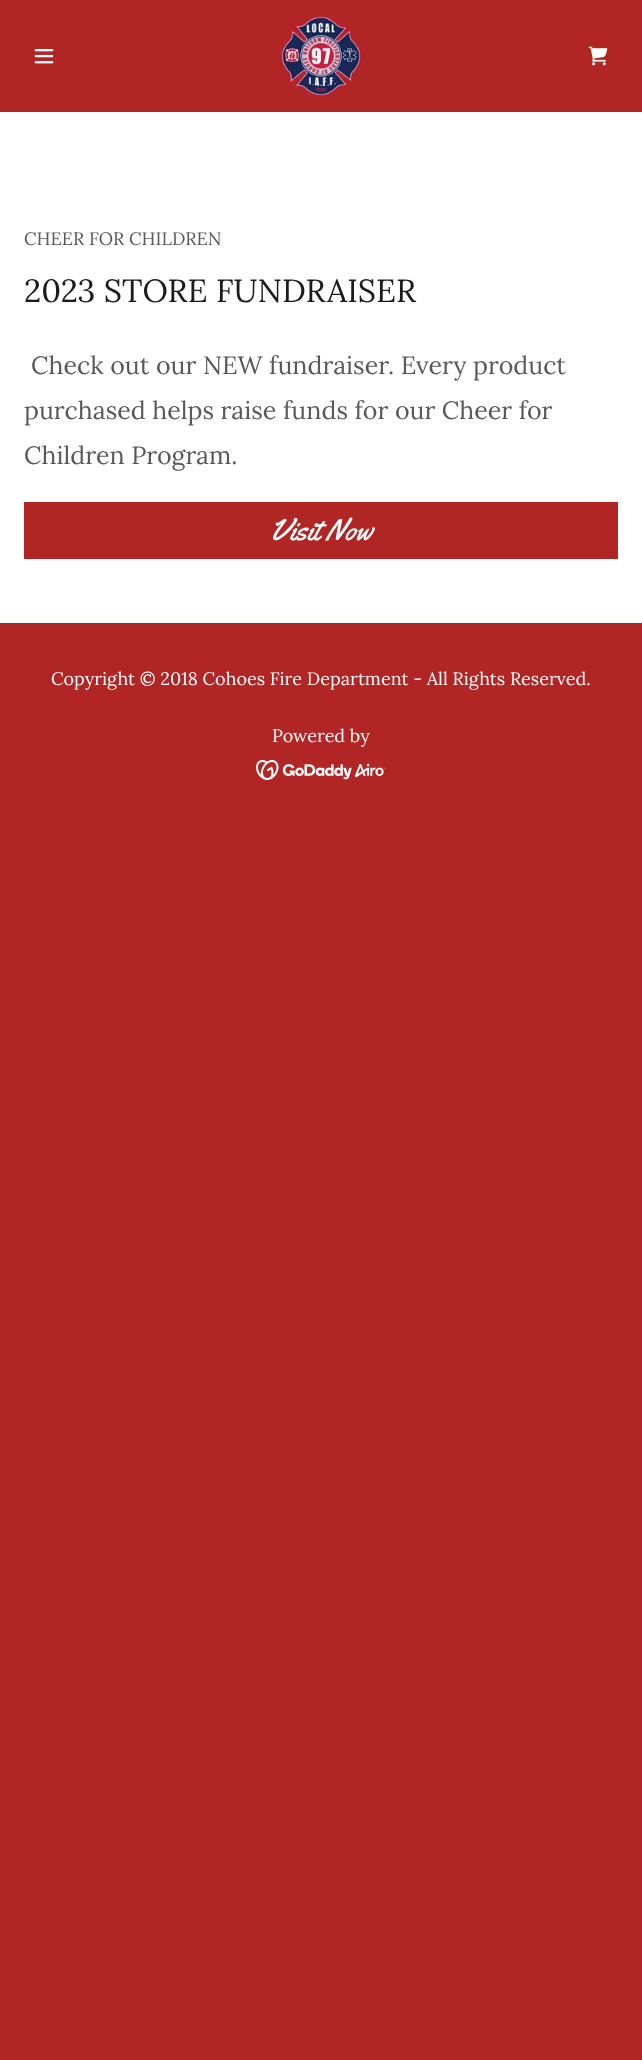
async function draw(canvas) {
	canvas.width = 642;
	canvas.height = 2060;
	const c = canvas.getContext('2d');
	c.miterLimit = 4;
	c.fontKerning = 'normal';
	async function loadImage(src) {
		const img = new Image();
		img.src = src;
		await img.decode();
		return img;
	}

	c.fillStyle = '#b22525';
	c.fillRect(0, 0, 642, 2060);
	c.drawImage(await loadImage('img1.png'), 34, 49, 20, 15);
	c.drawImage(await loadImage('img2.png'), 281, 16, 80, 80);
	c.drawImage(await loadImage('img3.png'), 588, 46, 20, 20);
	c.fillStyle = '#fff';
	c.fillRect(0, 112, 642, 511);
	c.font = '18px Lora';
	c.fillStyle = '#595959';
	c.fillText('CHEER FOR CHILDREN', 24, 245);
	c.font = '32px Lora';
	c.fillStyle = '#1b1b1b';
	c.fillText('2023 STORE FUNDRAISER', 24, 302);
	c.font = '25px Lora';
	c.fillStyle = '#595959';
	for (const [text, x, y] of [
		['Check out our NEW fundraiser. Every product', 31, 374],
		['purchased helps raise funds for our Cheer for', 24, 419],
		['Children Program.', 24, 464],
	]) {
		c.fillText(text, x, y);
	}
	c.fillStyle = '#b22525';
	c.fillRect(24, 502, 594, 57);
	c.font = '30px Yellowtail';
	c.fillStyle = '#fff';
	c.fillText('Visit Now', 270, 540);
	c.font = '18px Lora';
	c.fillText('Copyright © 2018 Cohoes Fire Department - All Rights Reserved.', 51, 685);
	c.fillText('Powered by', 272, 742);
	c.drawImage(await loadImage('img4.png'), 256, 760, 130, 20);
}

draw(document.querySelector('canvas'));
